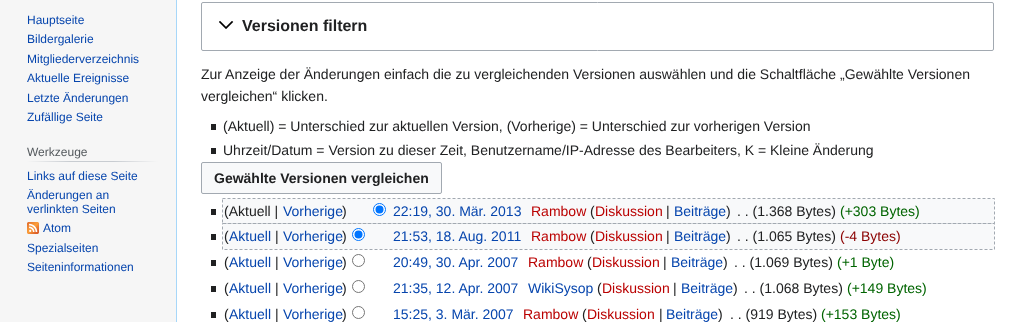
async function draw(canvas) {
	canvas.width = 1018;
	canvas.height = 322;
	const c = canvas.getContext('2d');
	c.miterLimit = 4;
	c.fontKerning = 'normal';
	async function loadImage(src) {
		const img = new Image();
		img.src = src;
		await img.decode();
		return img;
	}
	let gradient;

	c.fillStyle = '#f6f6f6';
	c.fillRect(0, 0, 1018, 322);
	c.font = '12px Liberation Sans';
	c.fillStyle = '#0645ad';
	for (const [text, x, y] of [
		['Hauptseite', 27, 24],
		['Bildergalerie', 27, 43],
		['Mitgliederverzeichnis', 27, 63],
		['Aktuelle Ereignisse', 27, 82],
		['Letzte Änderungen', 27, 102],
		['Zufällige Seite', 27, 121],
	]) {
		c.fillText(text, x, y);
	}
	gradient = c.createLinearGradient(27, 162, 158, 162);
	gradient.addColorStop(0, '#f6f6f6');
	gradient.addColorStop(0.33, '#c8ccd1');
	gradient.addColorStop(0.66, '#c8ccd1');
	gradient.addColorStop(1, '#f6f6f6');
	c.fillStyle = gradient;
	c.fillRect(27, 161, 131, 1);
	c.fillStyle = '#54595d';
	c.fillText('Werkzeuge', 27, 156);
	c.fillStyle = '#0645ad';
	for (const [text, x, y] of [
		['Links auf diese Seite', 27, 180],
		['Änderungen an', 27, 199],
		['verlinkten Seiten', 27, 213],
	]) {
		c.fillText(text, x, y);
	}
	c.drawImage(await loadImage('img1.png'), 27, 222, 12, 12);
	for (const [text, x, y] of [
		['Atom', 43, 232],
		['Spezialseiten', 27, 252],
		['Seiteninformationen', 27, 271],
	]) {
		c.fillText(text, x, y);
	}
	c.fillStyle = '#fff';
	c.fillRect(177, 0, 841, 322);
	c.fillStyle = '#a7d7f9';
	c.fillRect(176, 0, 1, 322);
	c.beginPath();
	c.roundRect(201.5, 2.5, 792, 48, 1.5);
	c.strokeStyle = '#a2a9b1';
	c.stroke();
	c.drawImage(await loadImage('img2.png'), 219, 21, 15, 8);
	c.font = 'bold 16px Liberation Sans';
	c.fillStyle = '#202122';
	c.fillText('Versionen filtern', 242, 31);
	c.font = '14px Liberation Sans';
	c.fillText('Zur Anzeige der Änderungen einfach die zu vergleichenden Versionen auswählen und die Schaltfläche „Gewählte Versionen', 201, 79);
	c.fillText('vergleichen“ klicken.', 201, 101);
	c.fillRect(211, 124, 5, 6);
	c.fillText('(Aktuell) = Unterschied zur aktuellen Version, (Vorherige) = Unterschied zur vorherigen Version', 223, 131);
	c.fillRect(211, 148, 5, 6);
	c.fillText('Uhrzeit/Datum = Version zu dieser Zeit, Benutzername/IP-Adresse des Bearbeiters, K = Kleine Änderung', 223, 155);
	c.fillStyle = '#f8f9fa';
	c.beginPath();
	c.roundRect(201.5, 162.5, 240, 31, 1.5);
	c.fill();
	c.stroke();
	c.font = 'bold 14px Liberation Sans';
	c.fillStyle = '#202122';
	c.fillText('Gewählte Versionen vergleichen', 214, 183);
	c.fillStyle = '#f8f9fa';
	c.fillRect(223, 199, 771, 24);
	c.fillStyle = '#202122';
	c.fillRect(211, 209, 5, 6);
	c.font = '14px Liberation Sans';
	c.fillText('(Aktuell |', 224, 216);
	c.fillStyle = '#0645ad';
	c.fillText('Vorherige', 283, 216);
	c.fillStyle = '#202122';
	c.fillText(')', 342, 216);
	c.fillStyle = '#fff';
	c.beginPath();
	c.arc(379.5, 209.5, 6, 0, 2 * Math.PI);
	c.fill();
	c.strokeStyle = '#0075ff';
	c.stroke();
	c.fillStyle = '#0075ff';
	c.beginPath();
	c.arc(379.5, 209.5, 4, 0, 2 * Math.PI);
	c.fill();
	c.fillStyle = '#0645ad';
	c.fillText('22:19, 30. Mär. 2013', 393, 216);
	c.fillStyle = '#ba0000';
	c.fillText('Rambow', 531, 216);
	c.fillStyle = '#202122';
	c.fillText('(', 590, 216);
	c.fillStyle = '#ba0000';
	c.fillText('Diskussion', 595, 216);
	c.fillStyle = '#202122';
	c.fillText('|', 666, 216);
	c.fillStyle = '#0645ad';
	c.fillText('Beiträge', 674, 216);
	c.fillStyle = '#202122';
	c.fillText(')', 726, 216);
	c.fillText('. . (1.368 Bytes)', 737, 216);
	c.fillStyle = '#006400';
	c.fillText('(+303 Bytes)', 840, 216);
	c.beginPath();
	c.moveTo(222.5, 198.5);
	c.lineTo(994.5, 198.5);
	c.lineTo(994.5, 223.5);
	c.lineTo(222.5, 223.5);
	c.closePath();
	c.strokeStyle = '#a2a9b1';
	c.setLineDash([3, 2]);
	c.stroke();
	c.fillStyle = '#f8f9fa';
	c.fillRect(223, 224, 771, 25);
	c.fillStyle = '#202122';
	c.fillRect(211, 234, 5, 6);
	c.fillText('(', 224, 241);
	c.fillStyle = '#0645ad';
	c.fillText('Aktuell', 229, 241);
	c.fillStyle = '#202122';
	c.fillText('|', 275, 241);
	c.fillStyle = '#0645ad';
	c.fillText('Vorherige', 283, 241);
	c.fillStyle = '#202122';
	c.fillText(')', 342, 241);
	c.fillStyle = '#fff';
	c.beginPath();
	c.arc(358.5, 234.5, 6, 0, 2 * Math.PI);
	c.fill();
	c.strokeStyle = '#0075ff';
	c.setLineDash([]);
	c.stroke();
	c.fillStyle = '#0075ff';
	c.beginPath();
	c.arc(358.5, 234.5, 4, 0, 2 * Math.PI);
	c.fill();
	c.fillStyle = '#0645ad';
	c.fillText('21:53, 18. Aug. 2011', 393, 241);
	c.fillStyle = '#ba0000';
	c.fillText('Rambow', 531, 241);
	c.fillStyle = '#202122';
	c.fillText('(', 590, 241);
	c.fillStyle = '#ba0000';
	c.fillText('Diskussion', 595, 241);
	c.fillStyle = '#202122';
	c.fillText('|', 666, 241);
	c.fillStyle = '#0645ad';
	c.fillText('Beiträge', 674, 241);
	c.fillStyle = '#202122';
	c.fillText(')', 726, 241);
	c.fillText('. . (1.065 Bytes)', 737, 241);
	c.fillStyle = '#8b0000';
	c.fillText('(-4 Bytes)', 840, 241);
	c.beginPath();
	c.moveTo(222.5, 223.5);
	c.lineTo(994.5, 223.5);
	c.lineTo(994.5, 249.5);
	c.lineTo(222.5, 249.5);
	c.closePath();
	c.strokeStyle = '#a2a9b1';
	c.setLineDash([3, 2]);
	c.stroke();
	c.fillStyle = '#202122';
	c.fillRect(211, 260, 5, 6);
	c.fillText('(', 224, 267);
	c.fillStyle = '#0645ad';
	c.fillText('Aktuell', 229, 267);
	c.fillStyle = '#202122';
	c.fillText('|', 275, 267);
	c.fillStyle = '#0645ad';
	c.fillText('Vorherige', 283, 267);
	c.fillStyle = '#202122';
	c.fillText(')', 342, 267);
	c.beginPath();
	c.arc(358.5, 260.5, 6, 0, 2 * Math.PI);
	c.strokeStyle = '#767676';
	c.setLineDash([]);
	c.stroke();
	c.fillStyle = '#0645ad';
	c.fillText('20:49, 30. Apr. 2007', 393, 267);
	c.fillStyle = '#ba0000';
	c.fillText('Rambow', 528, 267);
	c.fillStyle = '#202122';
	c.fillText('(', 587, 267);
	c.fillStyle = '#ba0000';
	c.fillText('Diskussion', 592, 267);
	c.fillStyle = '#202122';
	c.fillText('|', 663, 267);
	c.fillStyle = '#0645ad';
	c.fillText('Beiträge', 671, 267);
	c.fillStyle = '#202122';
	c.fillText(')', 723, 267);
	c.fillText('. . (1.069 Bytes)', 734, 267);
	c.fillStyle = '#006400';
	c.fillText('(+1 Byte)', 837, 267);
	c.fillStyle = '#202122';
	c.fillRect(211, 286, 5, 6);
	c.fillText('(', 224, 293);
	c.fillStyle = '#0645ad';
	c.fillText('Aktuell', 229, 293);
	c.fillStyle = '#202122';
	c.fillText('|', 275, 293);
	c.fillStyle = '#0645ad';
	c.fillText('Vorherige', 283, 293);
	c.fillStyle = '#202122';
	c.fillText(')', 342, 293);
	c.beginPath();
	c.arc(358.5, 286.5, 6, 0, 2 * Math.PI);
	c.stroke();
	c.fillStyle = '#0645ad';
	c.fillText('21:35, 12. Apr. 2007', 393, 293);
	c.fillText('WikiSysop', 528, 293);
	c.fillStyle = '#202122';
	c.fillText('(', 597, 293);
	c.fillStyle = '#ba0000';
	c.fillText('Diskussion', 602, 293);
	c.fillStyle = '#202122';
	c.fillText('|', 673, 293);
	c.fillStyle = '#0645ad';
	c.fillText('Beiträge', 681, 293);
	c.fillStyle = '#202122';
	c.fillText(')', 733, 293);
	c.fillText('. . (1.068 Bytes)', 744, 293);
	c.fillStyle = '#006400';
	c.fillText('(+149 Bytes)', 847, 293);
	c.fillStyle = '#202122';
	c.fillRect(211, 312, 5, 6);
	c.fillText('(', 224, 319);
	c.fillStyle = '#0645ad';
	c.fillText('Aktuell', 229, 319);
	c.fillStyle = '#202122';
	c.fillText('|', 275, 319);
	c.fillStyle = '#0645ad';
	c.fillText('Vorherige', 283, 319);
	c.fillStyle = '#202122';
	c.fillText(')', 342, 319);
	c.beginPath();
	c.arc(358.5, 312.5, 6, 0, 2 * Math.PI);
	c.stroke();
	c.fillStyle = '#0645ad';
	c.fillText('15:25, 3. Mär. 2007', 393, 319);
	c.fillStyle = '#ba0000';
	c.fillText('Rambow', 523, 319);
	c.fillStyle = '#202122';
	c.fillText('(', 582, 319);
	c.fillStyle = '#ba0000';
	c.fillText('Diskussion', 587, 319);
	c.fillStyle = '#202122';
	c.fillText('|', 659, 319);
	c.fillStyle = '#0645ad';
	c.fillText('Beiträge', 666, 319);
	c.fillStyle = '#202122';
	c.fillText(')', 718, 319);
	c.fillText('. . (919 Bytes)', 730, 319);
	c.fillStyle = '#006400';
	c.fillText('(+153 Bytes)', 821, 319);
}

draw(document.querySelector('canvas'));
